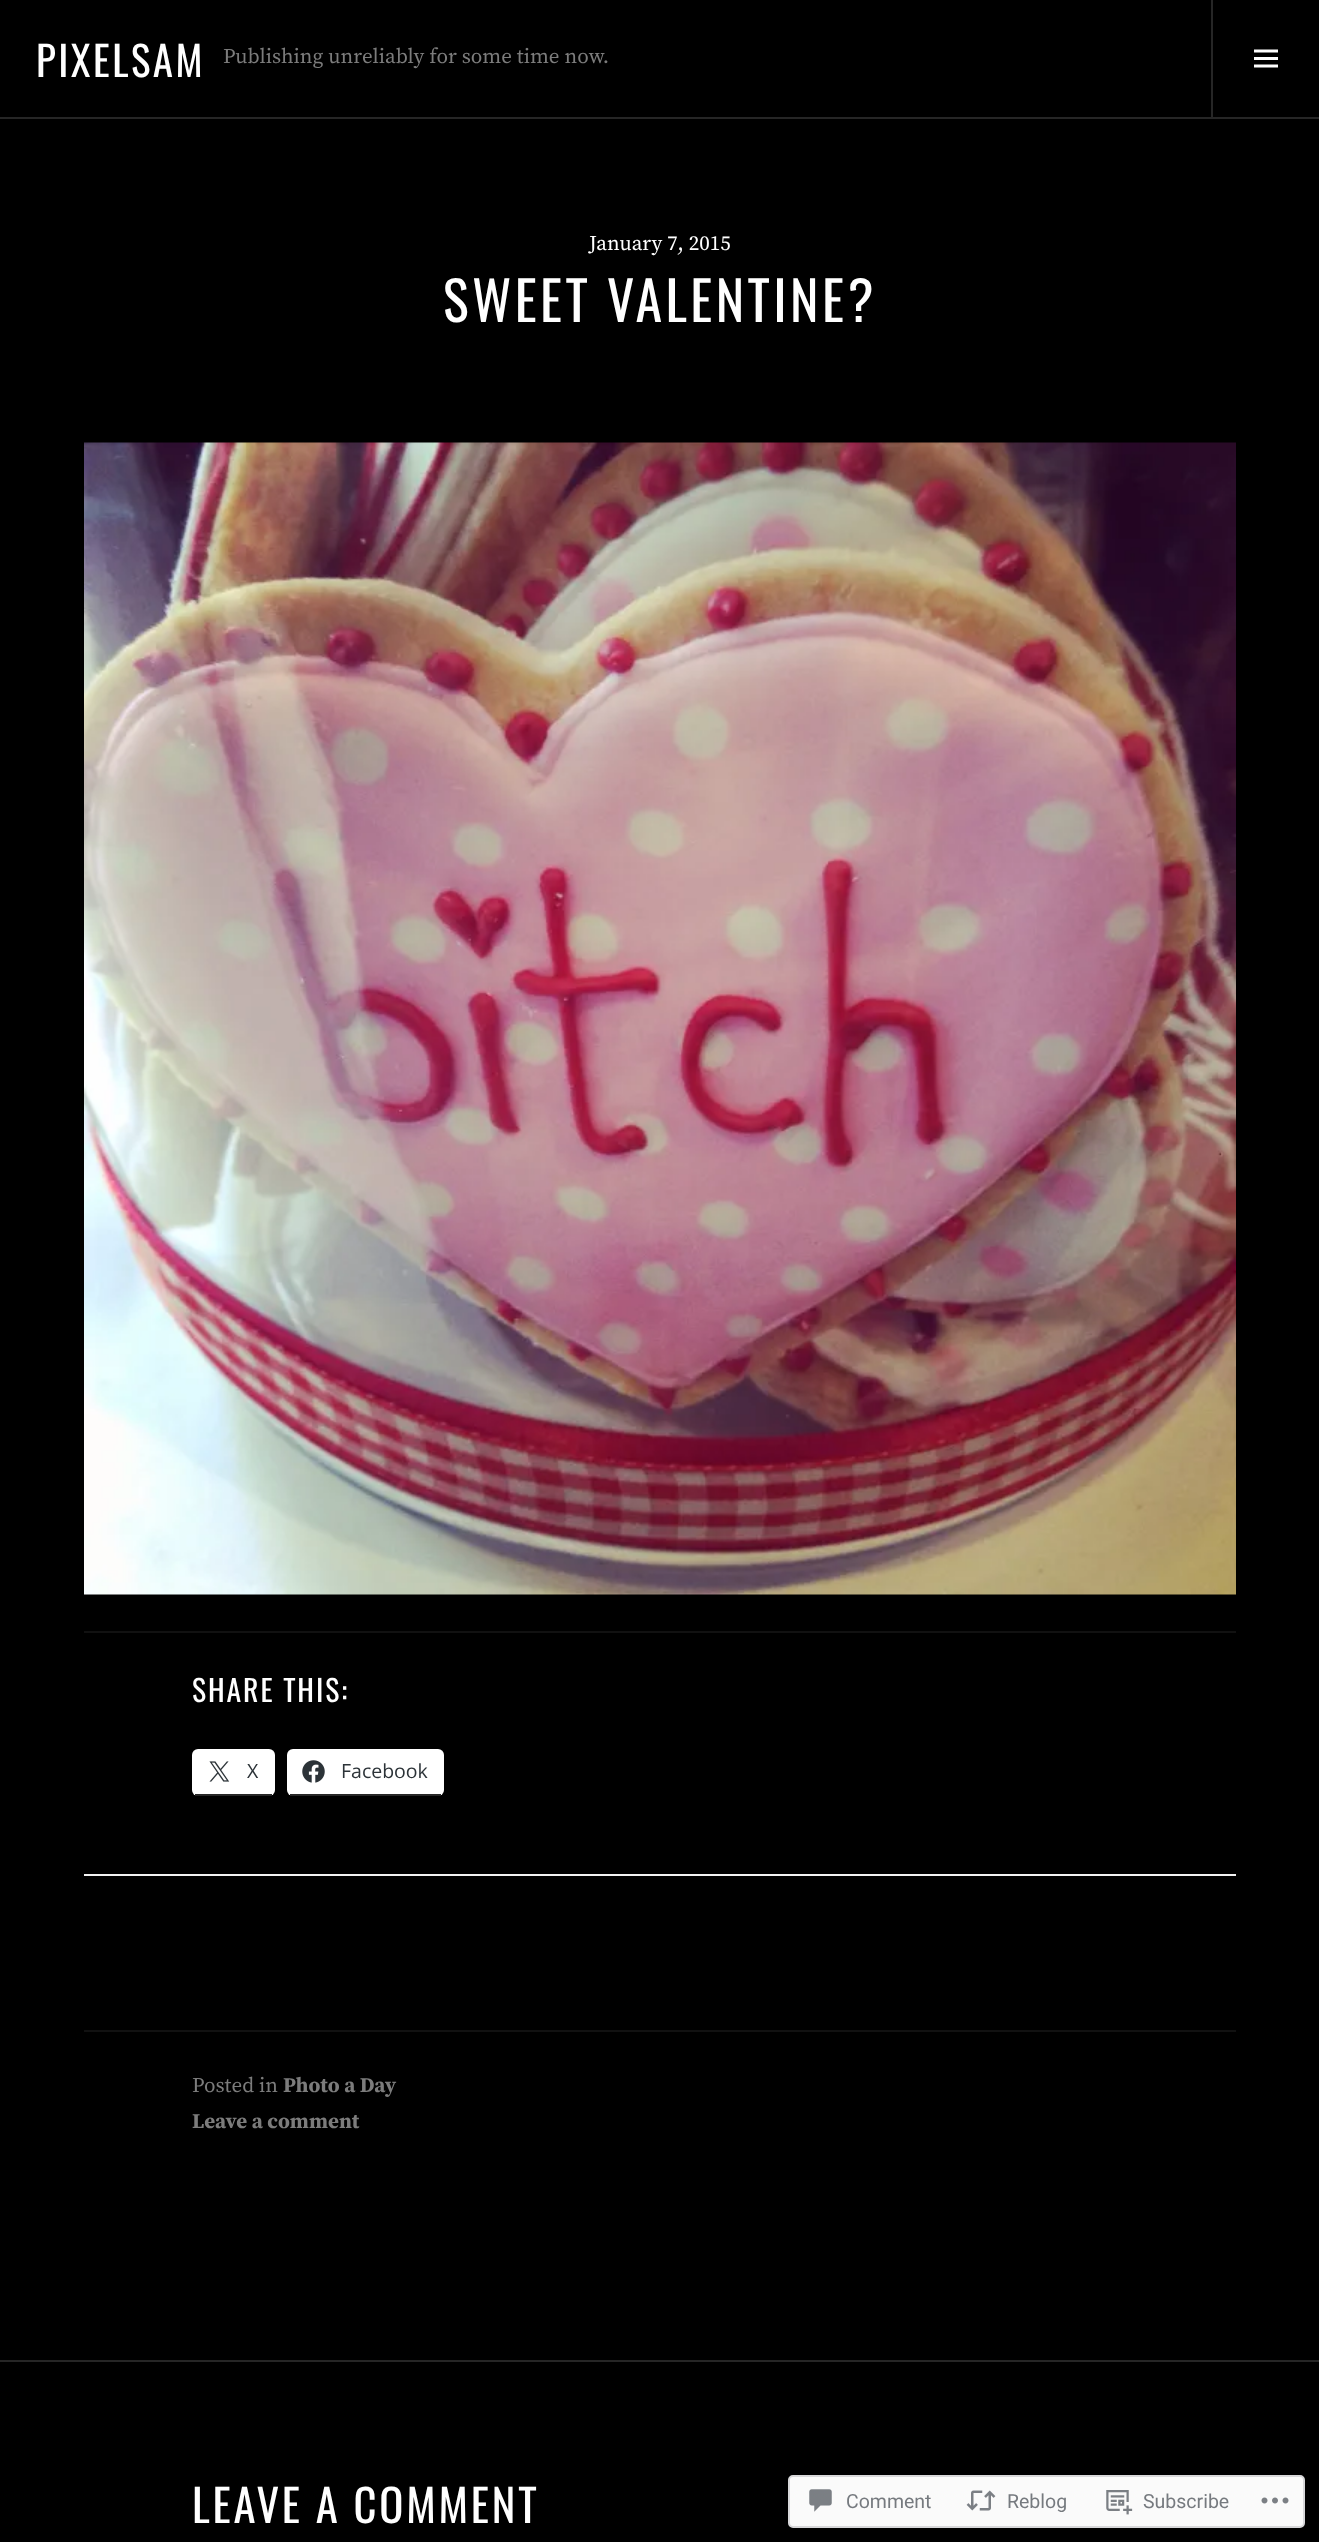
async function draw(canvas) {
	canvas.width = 1319;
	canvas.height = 2542;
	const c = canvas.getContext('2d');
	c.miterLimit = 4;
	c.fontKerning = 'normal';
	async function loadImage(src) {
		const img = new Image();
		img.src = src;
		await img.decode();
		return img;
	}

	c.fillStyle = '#000';
	c.fillRect(0, 0, 1319, 2542);
	c.fillStyle = '#262626';
	c.fillRect(0, 117, 1319, 2);
	c.letterSpacing = '2.5px';
	c.font = '41px Oswald';
	c.fillStyle = '#fff';
	c.fillText('PIXELSAM', 36, 77);
	c.letterSpacing = '0px';
	c.font = '21px Source Serif Pro';
	c.fillStyle = '#7c7c7c';
	c.fillText('Publishing unreliably for some time now.', 223, 63);
	c.fillStyle = '#262626';
	c.fillRect(1211, 0, 2, 117);
	c.drawImage(await loadImage('img1.png'), 1254, 49, 24, 19);
	c.fillStyle = '#fff';
	c.fillText('January 7, 2015', 589, 250);
	c.letterSpacing = '3.4px';
	c.font = '54px Oswald';
	c.fillText('SWEET VALENTINE?', 443, 322);
	c.drawImage(await loadImage('img2.png'), 84, 442, 1152, 1153);
	c.fillStyle = '#111';
	c.fillRect(84, 1631, 1152, 2);
	c.letterSpacing = '1.9px';
	c.font = '29.75px Oswald';
	c.fillStyle = '#fff';
	c.fillText('SHARE THIS:', 192, 1702);
	c.beginPath();
	c.roundRect(192, 1749, 83, 47, 6);
	c.fill();
	c.fillStyle = '#262626';
	c.fillRect(195, 1794, 77, 2);
	c.drawImage(await loadImage('img3.png'), 209, 1761, 21, 21);
	c.letterSpacing = '0px';
	c.font = '19.5px Open Sans';
	c.fillStyle = '#2c3338';
	c.fillText('X', 247, 1778);
	c.fillStyle = '#fff';
	c.beginPath();
	c.roundRect(287, 1749, 157, 47, 6);
	c.fill();
	c.fillStyle = '#262626';
	c.fillRect(290, 1794, 151, 2);
	c.drawImage(await loadImage('img4.png'), 302, 1760, 23, 23);
	c.fillStyle = '#2c3338';
	c.fillText('Facebook', 341, 1778);
	c.fillStyle = '#f2f2f2';
	c.fillRect(84, 1874, 1152, 2);
	c.fillStyle = '#111';
	c.fillRect(84, 2030, 1152, 2);
	c.font = '21px Source Serif Pro';
	c.fillStyle = '#7c7c7c';
	c.fillText('Posted in', 192, 2092);
	c.font = 'bold 21px Source Serif Pro';
	c.fillText('Photo a Day', 283, 2092);
	c.fillText('Leave a comment', 192, 2128);
	c.fillStyle = '#262626';
	c.fillRect(0, 2360, 1319, 2);
	c.letterSpacing = '2.75px';
	c.font = '44.75px Oswald';
	c.fillStyle = '#fff';
	c.fillText('LEAVE A COMMENT', 192, 2523);
	c.fillStyle = '#fafafa';
	c.beginPath();
	c.roundRect(789, 2476, 515, 51, 4);
	c.fill();
	c.strokeStyle = '#d8d8da';
	c.lineWidth = 2;
	c.stroke();
	c.drawImage(await loadImage('img5.png'), 809, 2489, 23, 23);
	c.letterSpacing = '0px';
	c.font = '19.5px Roboto';
	c.fillStyle = '#767a7f';
	c.fillText('Comment', 846, 2508);
	c.drawImage(await loadImage('img6.png'), 966, 2490, 30, 21);
	c.fillText('Reblog', 1007, 2508);
	c.drawImage(await loadImage('img7.png'), 1106, 2490, 27, 25);
	c.fillText('Subscribe', 1143, 2508);
	c.drawImage(await loadImage('img8.png'), 1261, 2497, 28, 7);
}

draw(document.querySelector('canvas'));
